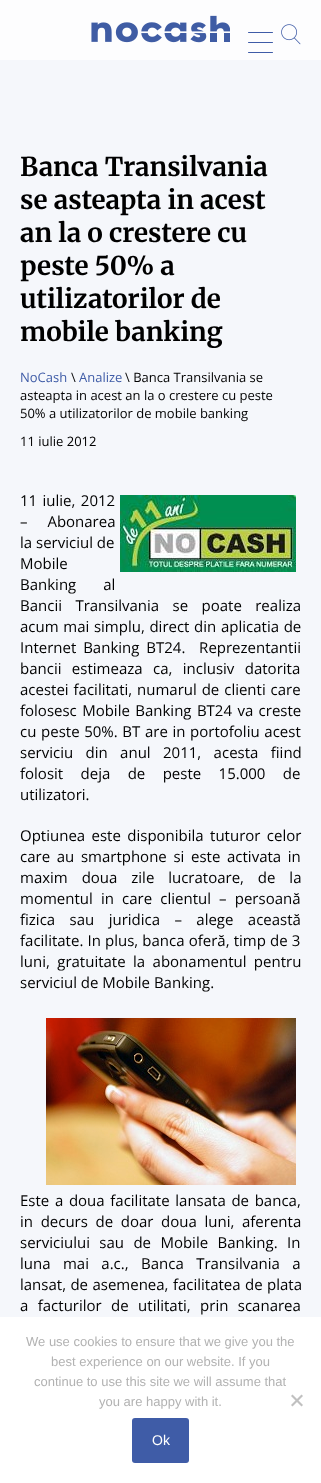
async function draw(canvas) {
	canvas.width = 321;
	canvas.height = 1483;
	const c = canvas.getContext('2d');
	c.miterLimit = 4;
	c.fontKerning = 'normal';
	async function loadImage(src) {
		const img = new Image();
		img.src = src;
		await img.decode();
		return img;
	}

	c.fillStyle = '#f5f7fb';
	c.fillRect(0, 0, 321, 1483);
	c.fillStyle = '#fdfdfe';
	c.fillRect(0, 0, 321, 60);
	c.drawImage(await loadImage('img1.png'), 91, 15, 139, 28);
	c.drawImage(await loadImage('img2.png'), 281, 24, 20, 21);
	c.fillStyle = '#3f5ca7';
	c.beginPath();
	c.roundRect(248, 42, 25, 1, 0.5);
	c.fill();
	c.beginPath();
	c.roundRect(248, 32, 25, 1, 0.5);
	c.fill();
	c.beginPath();
	c.roundRect(248, 52, 25, 1, 0.5);
	c.fill();
	c.font = 'bold 26px Merriweather';
	c.fillStyle = '#000';
	for (const [text, x, y] of [
		['Banca Transilvania', 20, 176],
		['se asteapta in acest', 20, 209],
		['an la o crestere cu', 20, 242],
		['peste 50% a', 20, 275],
		['utilizatorilor de', 20, 308],
		['mobile banking', 20, 341],
	]) {
		c.fillText(text, x, y);
	}
	c.font = '13px Open Sans';
	c.fillStyle = '#3f5ca7';
	c.fillText('NoCash', 20, 382);
	c.fillStyle = '#000';
	c.fillText('\\', 71, 382);
	c.fillStyle = '#3f5ca7';
	c.fillText('Analize', 79, 382);
	c.fillStyle = '#000';
	for (const [text, x, y] of [
		['\\ Banca Transilvania se', 125, 382],
		['asteapta in acest an la o crestere cu peste', 20, 400],
		['50% a utilizatorilor de mobile banking', 20, 418],
		['11 iulie 2012', 20, 446],
	]) {
		c.fillText(text, x, y);
	}
	c.wordSpacing = '1.5px';
	c.font = '15px Open Sans';
	c.fillText('11 iulie, 2012', 20, 506);
	c.drawImage(await loadImage('img3.png'), 120, 495, 176, 77);
	c.wordSpacing = '16px';
	c.fillText('– Abonarea', 20, 527);
	c.wordSpacing = '0px';
	c.fillText('la serviciul de', 20, 548);
	c.fillText('Mobile', 20, 569);
	c.wordSpacing = '23px';
	c.fillText('Banking al', 20, 590);
	c.wordSpacing = '9.5px';
	c.fillText('Bancii Transilvania se poate realiza', 20, 611);
	c.wordSpacing = '0.75px';
	c.fillText('acum mai simplu, direct din aplicatia de', 20, 632);
	c.wordSpacing = '3px';
	c.fillText('Internet Banking BT24.  Reprezentantii', 20, 653);
	c.wordSpacing = '6.5px';
	c.fillText('bancii estimeaza ca, inclusiv datorita', 20, 674);
	c.wordSpacing = '1px';
	c.fillText('acestei facilitati, numarul de clienti care', 20, 695);
	c.wordSpacing = '1.5px';
	c.fillText('folosesc Mobile Banking BT24 va creste', 20, 716);
	c.wordSpacing = '0.75px';
	c.fillText('cu peste 50%. BT are in portofoliu acest', 20, 737);
	c.wordSpacing = '8.5px';
	c.fillText('serviciu din anul 2011, acesta fiind', 20, 758);
	c.wordSpacing = '13.5px';
	c.fillText('folosit deja de peste 15.000 de', 20, 779);
	c.wordSpacing = '0px';
	c.fillText('utilizatori.', 20, 800);
	c.wordSpacing = '2.5px';
	c.fillText('Optiunea este disponibila tuturor celor', 20, 841);
	c.wordSpacing = '2.75px';
	c.fillText('care au smartphone si este activata in', 20, 862);
	c.wordSpacing = '10px';
	c.fillText('maxim doua zile lucratoare, de la', 20, 883);
	c.wordSpacing = '4.25px';
	c.fillText('momentul in care clientul – persoană', 20, 904);
	c.wordSpacing = '10.5px';
	c.fillText('fizica sau juridica – alege această', 20, 925);
	c.wordSpacing = '0.25px';
	c.fillText('facilitate. In plus, banca oferă, timp de 3', 20, 946);
	c.wordSpacing = '3.5px';
	c.fillText('luni, gratuitate la abonamentul pentru', 20, 967);
	c.wordSpacing = '0px';
	c.fillText('serviciul de Mobile Banking.', 20, 988);
	c.drawImage(await loadImage('img4.png'), 46, 1018, 250, 167);
	c.wordSpacing = '1.75px';
	c.fillText('Este a doua facilitate lansata de banca,', 20, 1206);
	c.wordSpacing = '3.75px';
	c.fillText('in decurs de doar doua luni, aferenta', 20, 1227);
	c.wordSpacing = '5.5px';
	c.fillText('serviciului sau de Mobile Banking. In', 20, 1248);
	c.wordSpacing = '8.5px';
	c.fillText('luna mai a.c., Banca Transilvania a', 20, 1269);
	c.wordSpacing = '0.5px';
	c.fillText('lansat, de asemenea, facilitatea de plata', 20, 1290);
	c.wordSpacing = '5.5px';
	c.fillText('a facturilor de utilitati, prin scanarea', 20, 1311);
	c.fillStyle = '#fff';
	c.fillRect(0, 1317, 321, 166);
	c.wordSpacing = '0px';
	c.font = '13px Liberation Sans';
	c.fillStyle = '#b2b2b2';
	for (const [text, x, y] of [
		['We use cookies to ensure that we give you the', 26, 1346],
		['best experience on our website. If you', 51, 1366],
		['continue to use this site we will assume that', 34, 1386],
		['you are happy with it.', 99, 1406],
	]) {
		c.fillText(text, x, y);
	}
	c.fillStyle = '#c0c0c0';
	c.beginPath();
	c.moveTo(301.5, 1394.5);
	c.lineTo(303, 1396);
	c.lineTo(292.5, 1406.5);
	c.lineTo(291, 1405);
	c.closePath();
	c.fill();
	c.beginPath();
	c.moveTo(291, 1396);
	c.lineTo(292.5, 1394.5);
	c.lineTo(303, 1405);
	c.lineTo(301.5, 1406.5);
	c.closePath();
	c.fill();
	c.fillStyle = '#3f5ca7';
	c.beginPath();
	c.roundRect(132, 1418, 57, 45, 3);
	c.fill();
	c.font = '14px Liberation Sans';
	c.fillStyle = '#fff';
	c.fillText('Ok', 152, 1445);
}

draw(document.querySelector('canvas'));
